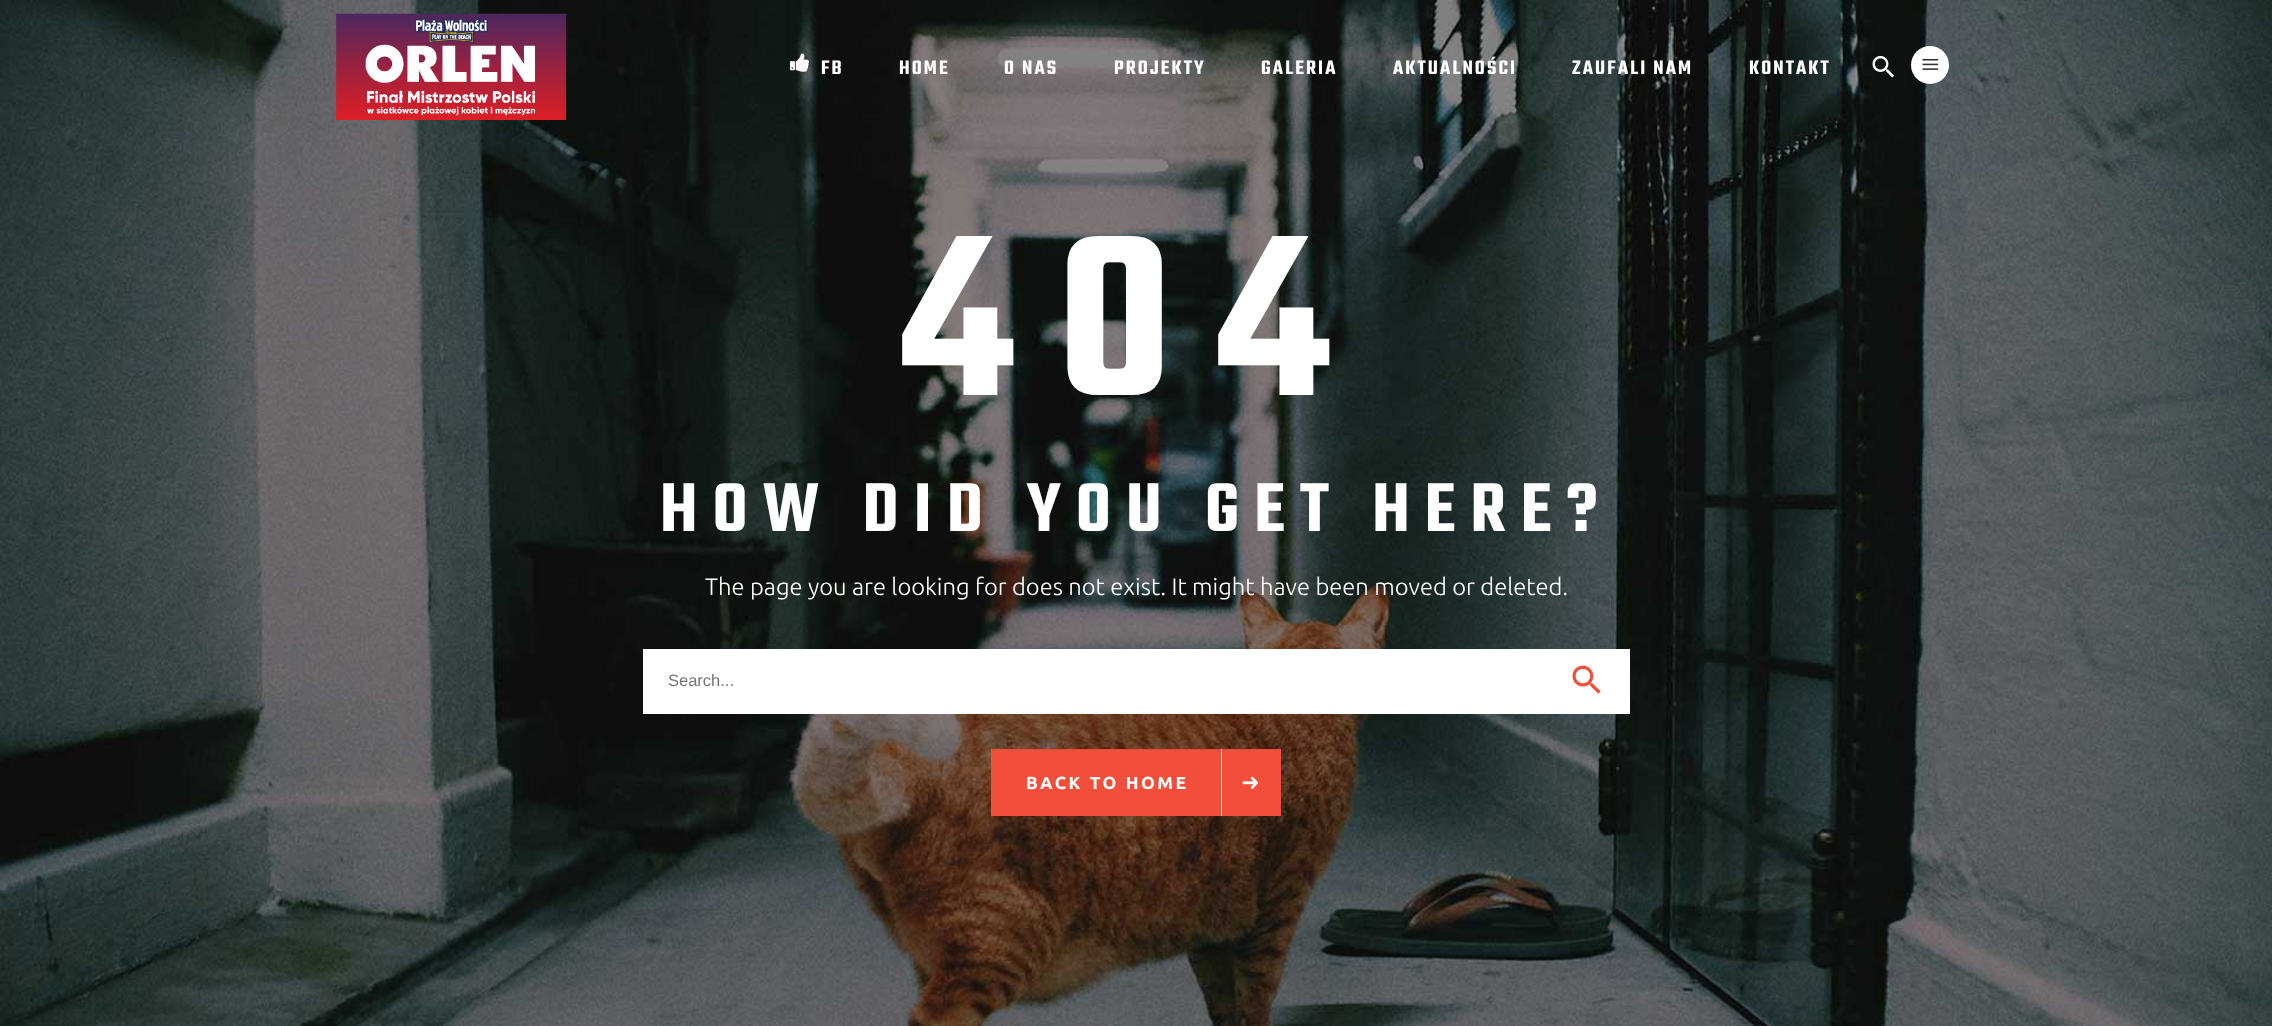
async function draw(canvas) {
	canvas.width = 2272;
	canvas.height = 1026;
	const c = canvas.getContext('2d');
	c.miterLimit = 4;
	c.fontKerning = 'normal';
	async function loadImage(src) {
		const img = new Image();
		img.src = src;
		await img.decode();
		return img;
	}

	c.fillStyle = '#fff';
	c.fillRect(0, 0, 2272, 1026);
	c.drawImage(await loadImage('img5.png'), 0, 0, 2272, 1026);
	c.drawImage(await loadImage('img1.png'), 336, 13, 231, 107);
	c.drawImage(await loadImage('img2.png'), 790, 53, 19, 19);
	c.letterSpacing = '2.1px';
	c.font = '600 21.25px Teko';
	for (const [text, x, y] of [
		['FB', 821, 74],
		['HOME', 899, 74],
		['O NAS', 1004, 74],
		['PROJEKTY', 1114, 74],
		['GALERIA', 1261, 74],
		['AKTUALNOŚCI', 1393, 74],
		['ZAUFALI NAM', 1572, 74],
		['KONTAKT', 1749, 74],
	]) {
		c.fillText(text, x, y);
	}
	c.drawImage(await loadImage('img3.png'), 1872, 55, 22, 23);
	c.beginPath();
	c.arc(1930, 65, 19, 0, 2 * Math.PI);
	c.fill();
	c.drawImage(await loadImage('img4.png'), 1922, 58, 17, 12);
	c.letterSpacing = '44px';
	c.font = '600 250px Teko';
	c.fillText('404', 900, 395);
	c.letterSpacing = '15px';
	c.font = '600 75px Teko';
	c.fillText('HOW DID YOU GET HERE?', 660, 531);
	c.letterSpacing = '0px';
	c.font = '300 23.75px Ubuntu';
	c.fillText('The page you are looking for does not exist. It might have been moved or deleted.', 705, 595);
	c.fillRect(643, 649, 987, 65);
	c.font = '16.5px Liberation Sans';
	c.fillStyle = '#757575';
	c.fillText('Search...', 668, 686);
	c.drawImage(await loadImage('img6.png'), 1572, 665, 29, 29);
	c.fillStyle = '#f34e3a';
	c.fillRect(991, 749, 290, 67);
	c.letterSpacing = '2.5px';
	c.font = 'bold 17.5px Ubuntu';
	c.fillStyle = '#fff';
	c.fillText('BACK TO HOME', 1026, 789);
	c.fillRect(1221, 749, 1, 67);
	c.drawImage(await loadImage('img7.png'), 1242, 776, 16, 13);
}

draw(document.querySelector('canvas'));
